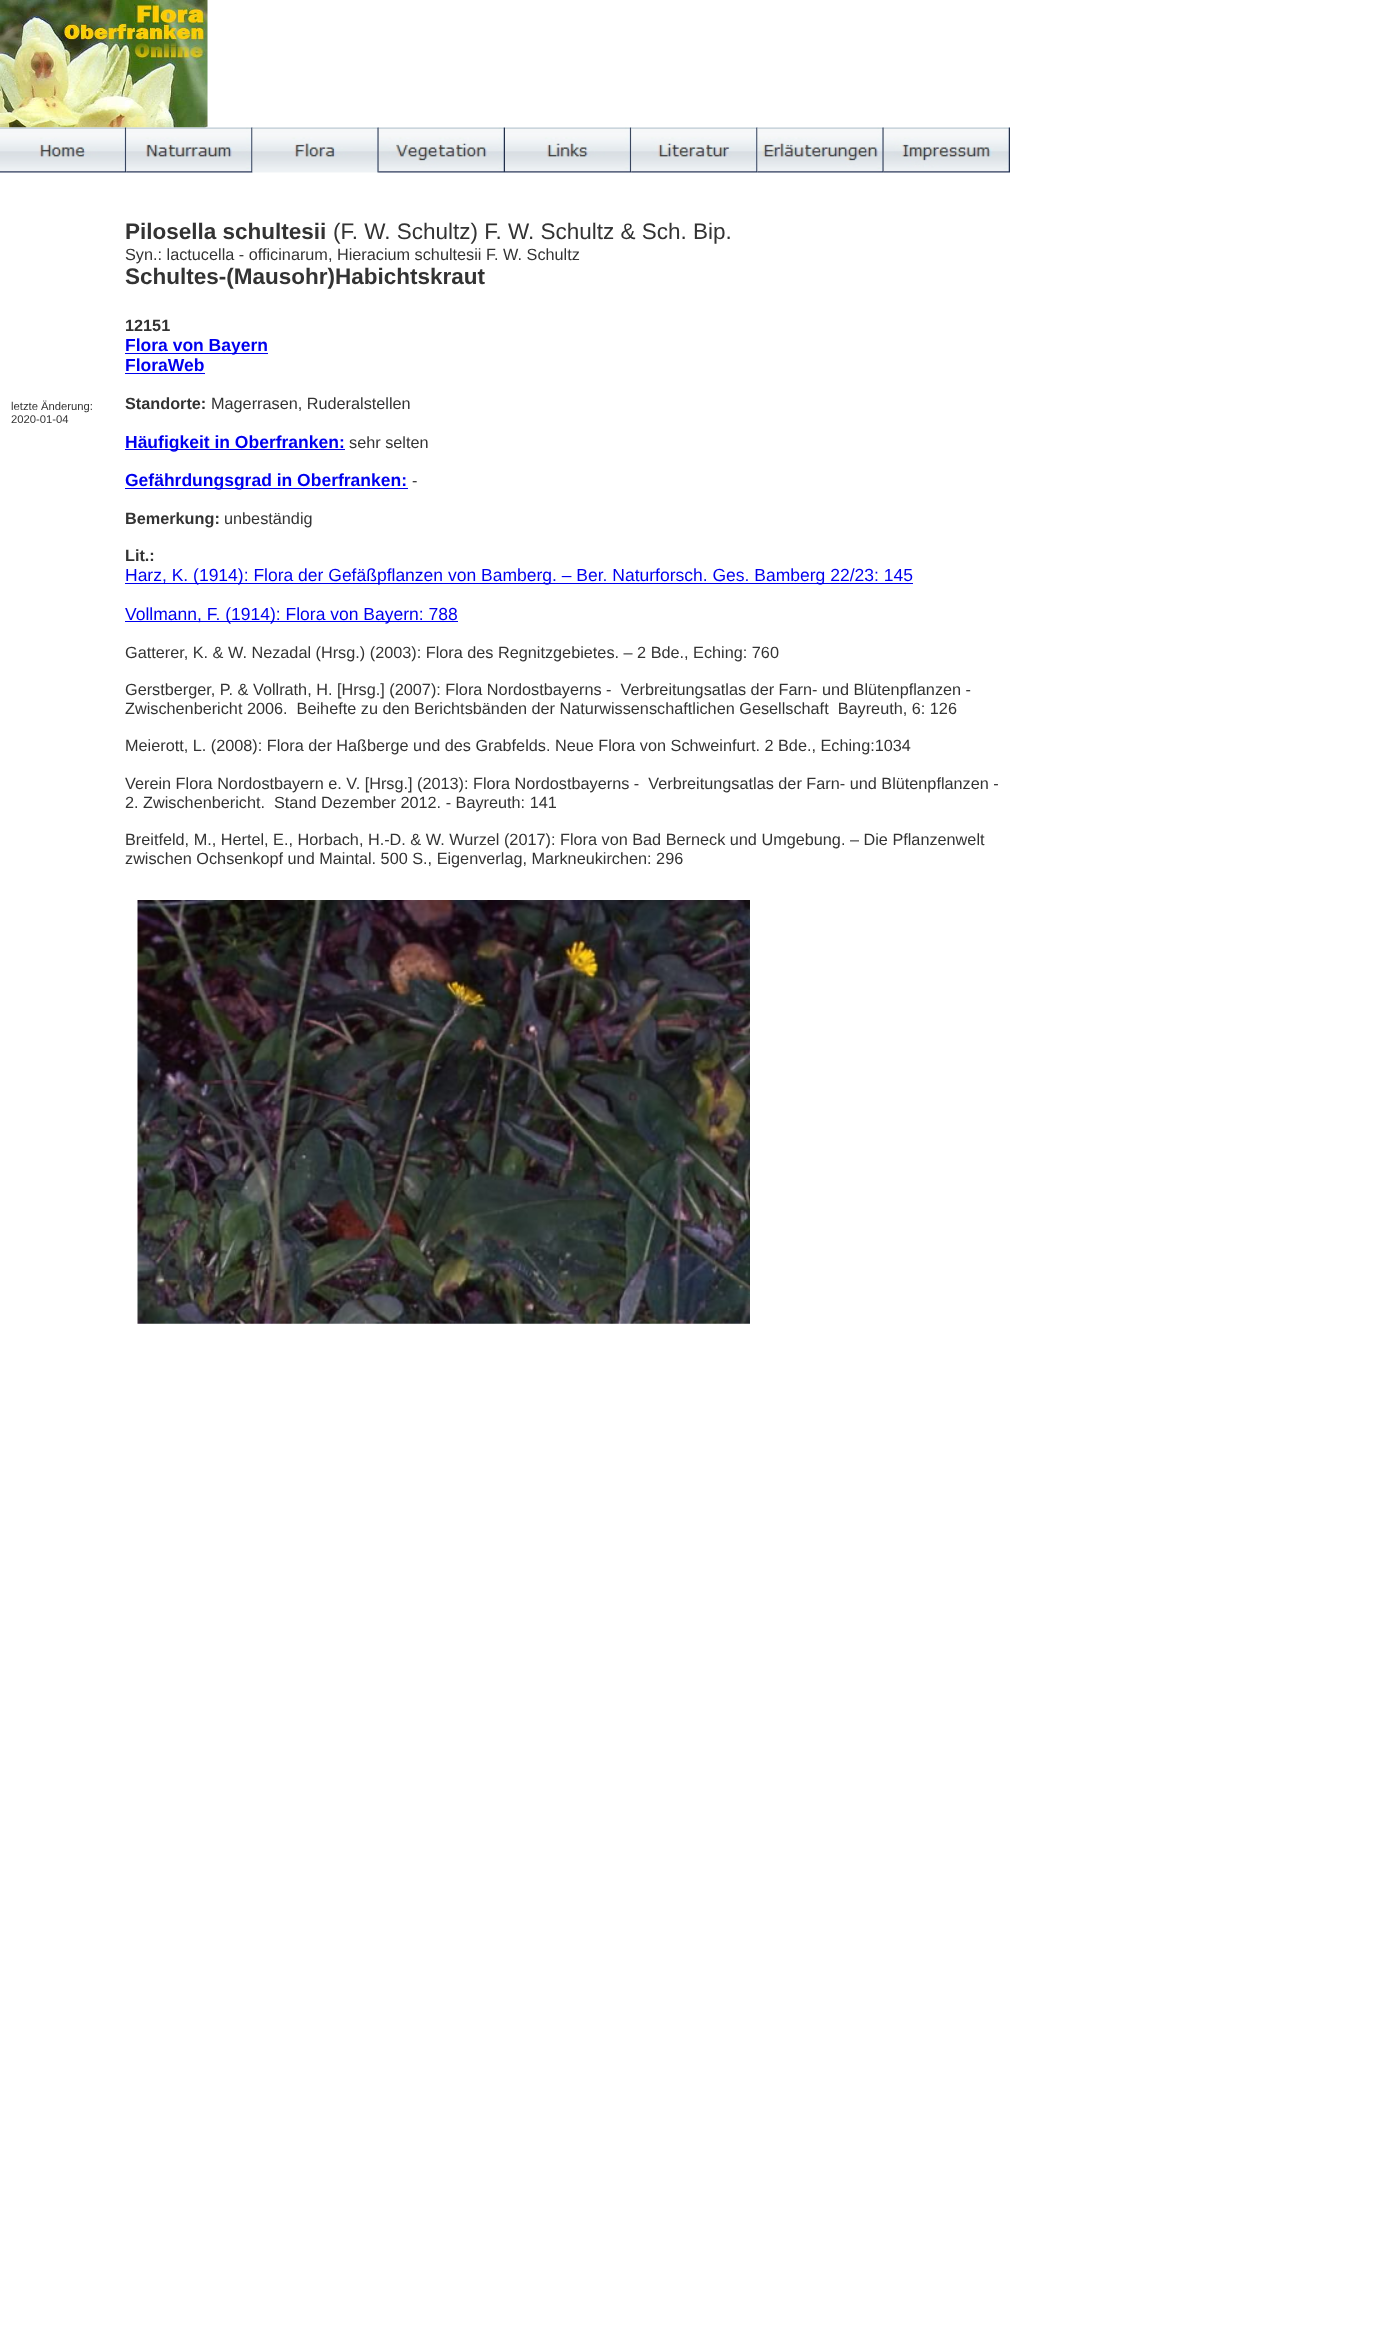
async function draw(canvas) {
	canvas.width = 1385;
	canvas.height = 2328;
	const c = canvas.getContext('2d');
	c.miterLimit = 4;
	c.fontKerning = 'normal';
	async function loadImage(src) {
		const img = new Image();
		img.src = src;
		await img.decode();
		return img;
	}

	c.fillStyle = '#fff';
	c.fillRect(0, 0, 1385, 2328);
	c.drawImage(await loadImage('img1.png'), 0, 0, 208, 128);
	c.drawImage(await loadImage('img2.png'), 0, 127, 127, 46);
	c.drawImage(await loadImage('img3.png'), 126, 127, 127, 46);
	c.drawImage(await loadImage('img4.png'), 252, 127, 127, 46);
	c.drawImage(await loadImage('img5.png'), 378, 127, 127, 46);
	c.drawImage(await loadImage('img6.png'), 505, 127, 127, 46);
	c.drawImage(await loadImage('img7.png'), 631, 127, 127, 46);
	c.drawImage(await loadImage('img8.png'), 757, 127, 127, 46);
	c.drawImage(await loadImage('img9.png'), 883, 127, 127, 46);
	c.font = '11.25px Liberation Sans';
	c.fillStyle = '#333';
	c.fillText('letzte Änderung:', 11, 410);
	c.fillText('2020-01-04', 11, 423);
	c.font = 'bold 22.5px Liberation Sans';
	c.fillText('Pilosella schultesii', 125, 239);
	c.font = '22.5px Liberation Sans';
	c.fillText('(F. W. Schultz) F. W. Schultz & Sch. Bip.', 333, 239);
	c.font = '16.25px Liberation Sans';
	c.fillText('Syn.: lactucella - officinarum, Hieracium schultesii F. W. Schultz', 125, 260);
	c.font = 'bold 22.5px Liberation Sans';
	c.fillText('Schultes-(Mausohr)Habichtskraut', 125, 284);
	c.font = 'bold 16.25px Liberation Sans';
	c.fillText('12151', 125, 331);
	c.fillStyle = '#00e';
	c.fillRect(125, 353, 143, 1);
	c.font = 'bold 17.5px Liberation Sans';
	c.fillText('Flora von Bayern', 125, 351);
	c.fillText('FloraWeb', 125, 371);
	c.fillRect(125, 373, 80, 1);
	c.font = 'bold 16.25px Liberation Sans';
	c.fillStyle = '#333';
	c.fillText('Standorte:', 125, 409);
	c.font = '16.25px Liberation Sans';
	c.fillText('Magerrasen, Ruderalstellen', 211, 409);
	c.fillStyle = '#00e';
	c.fillRect(125, 449, 220, 1);
	c.font = 'bold 17.5px Liberation Sans';
	c.fillText('Häufigkeit in Oberfranken:', 125, 448);
	c.font = '16.25px Liberation Sans';
	c.fillStyle = '#333';
	c.fillText('sehr selten', 349, 448);
	c.fillStyle = '#00e';
	c.fillRect(125, 488, 283, 1);
	c.font = 'bold 17.5px Liberation Sans';
	c.fillText('Gefährdungsgrad in Oberfranken:', 125, 486);
	c.font = '16.25px Liberation Sans';
	c.fillStyle = '#333';
	c.fillText('-', 412, 486);
	c.font = 'bold 16.25px Liberation Sans';
	c.fillText('Bemerkung:', 125, 524);
	c.font = '16.25px Liberation Sans';
	c.fillText('unbeständig', 224, 524);
	c.font = 'bold 16.25px Liberation Sans';
	c.fillText('Lit.:', 125, 561);
	c.fillStyle = '#00e';
	c.fillRect(125, 583, 788, 1);
	c.font = '17.5px Liberation Sans';
	c.fillText('Harz, K. (1914): Flora der Gefäßpflanzen von Bamberg. – Ber. Naturforsch. Ges. Bamberg 22/23: 145', 125, 581);
	c.fillRect(125, 621, 333, 1);
	c.fillText('Vollmann, F. (1914): Flora von Bayern: 788', 125, 620);
	c.font = '16.25px Liberation Sans';
	c.fillStyle = '#333';
	for (const [text, x, y] of [
		['Gatterer, K. & W. Nezadal (Hrsg.) (2003): Flora des Regnitzgebietes. – 2 Bde., Eching: 760', 125, 658],
		['Gerstberger, P. & Vollrath, H. [Hrsg.] (2007): Flora Nordostbayerns -  Verbreitungsatlas der Farn- und Blütenpflanzen -', 125, 695],
		['Zwischenbericht 2006.  Beihefte zu den Berichtsbänden der Naturwissenschaftlichen Gesellschaft  Bayreuth, 6: 126', 125, 714],
		['Meierott, L. (2008): Flora der Haßberge und des Grabfelds. Neue Flora von Schweinfurt. 2 Bde., Eching:1034', 125, 751],
		['Verein Flora Nordostbayern e. V. [Hrsg.] (2013): Flora Nordostbayerns -  Verbreitungsatlas der Farn- und Blütenpflanzen -', 125, 789],
		['2. Zwischenbericht.  Stand Dezember 2012. - Bayreuth: 141', 125, 808],
		['Breitfeld, M., Hertel, E., Horbach, H.-D. & W. Wurzel (2017): Flora von Bad Berneck und Umgebung. – Die Pflanzenwelt', 125, 845],
		['zwischen Ochsenkopf und Maintal. 500 S., Eigenverlag, Markneukirchen: 296', 125, 864],
	]) {
		c.fillText(text, x, y);
	}
	c.drawImage(await loadImage('img10.png'), 137, 900, 613, 424);
}

draw(document.querySelector('canvas'));
